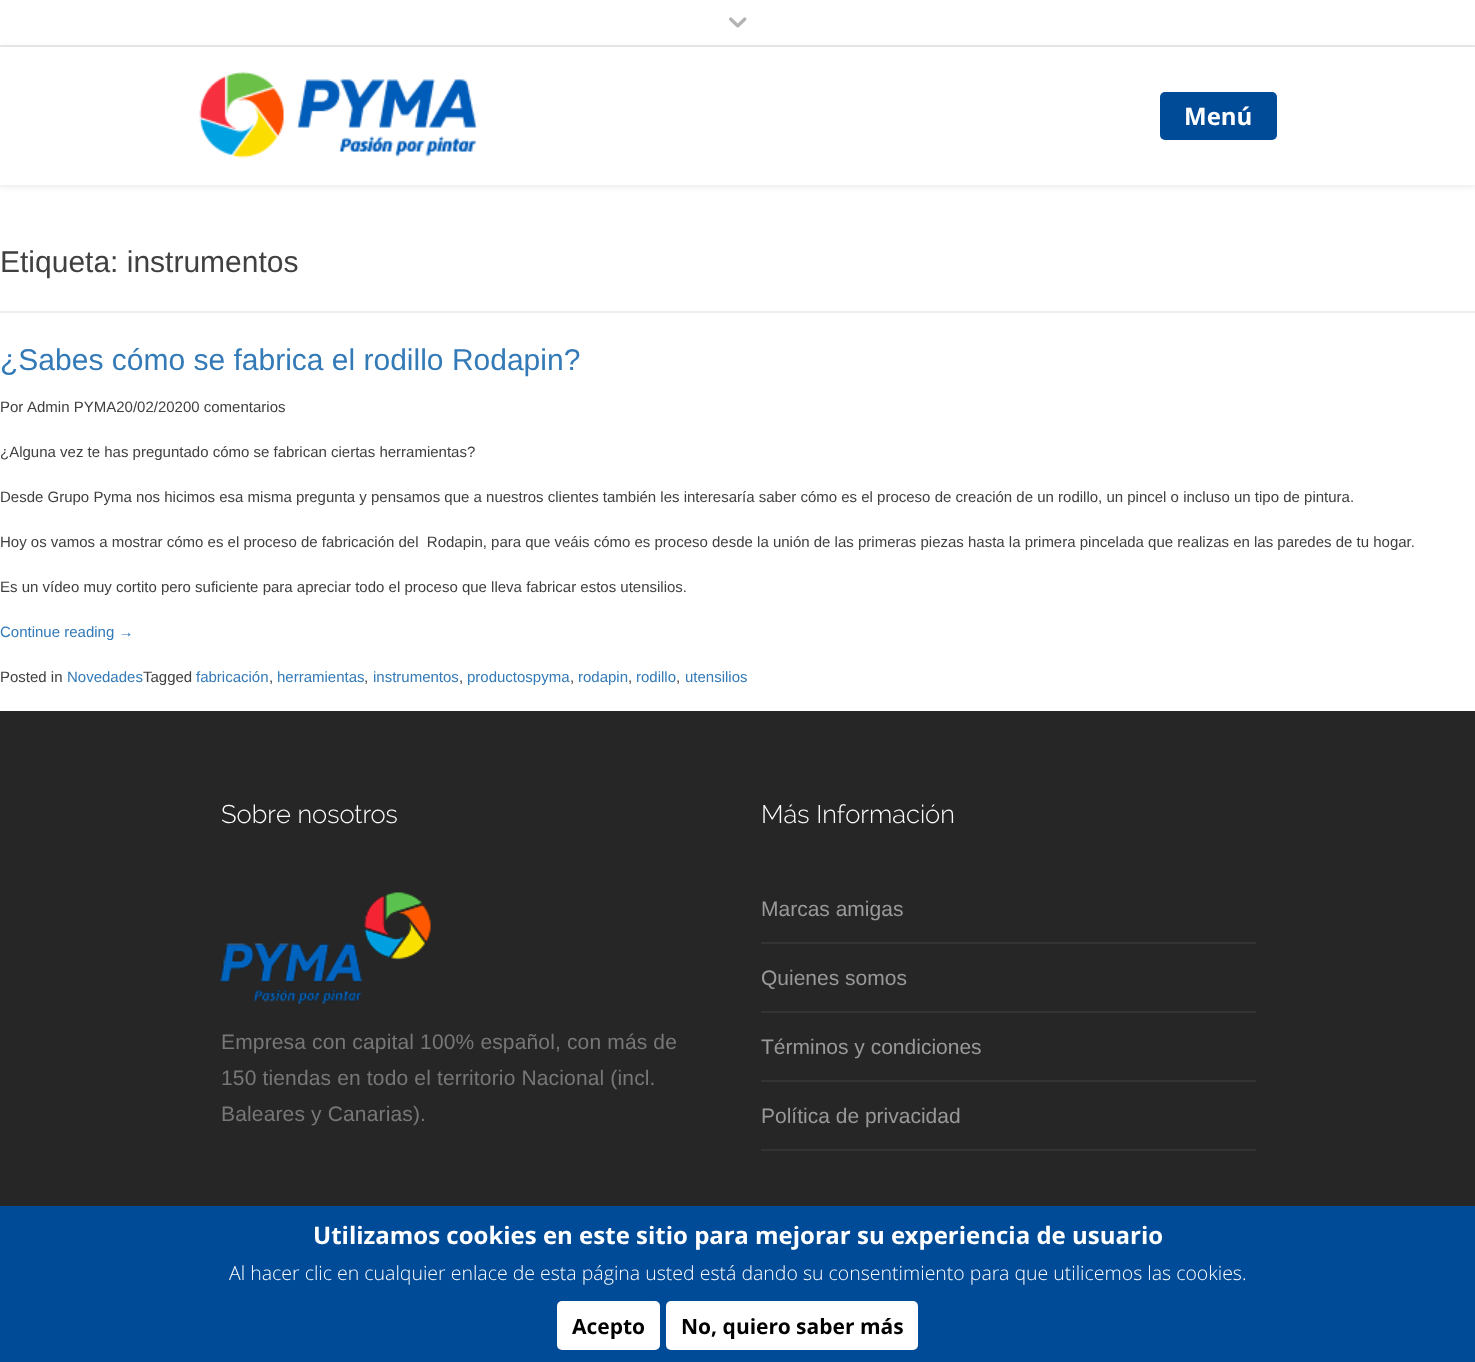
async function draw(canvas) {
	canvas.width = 1475;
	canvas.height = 1362;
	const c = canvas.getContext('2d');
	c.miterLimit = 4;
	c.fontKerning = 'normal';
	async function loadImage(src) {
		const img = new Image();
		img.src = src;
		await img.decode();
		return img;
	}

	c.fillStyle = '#fff';
	c.fillRect(0, 0, 1475, 1362);
	c.fillStyle = '#ececec';
	c.fillRect(0, 45, 1475, 2);
	c.drawImage(await loadImage('img1.png'), 729, 17, 18, 11);
	c.save();
	c.beginPath();
	c.moveTo(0, 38);
	c.lineTo(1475, 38);
	c.lineTo(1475, 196);
	c.lineTo(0, 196);
	c.closePath();
	c.moveTo(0, 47);
	c.lineTo(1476, 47);
	c.lineTo(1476, 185);
	c.lineTo(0, 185);
	c.closePath();
	c.clip('evenodd');
	c.fillStyle = '#0000001a';
	c.filter = 'blur(3px)';
	c.beginPath();
	c.rect(0, 48, 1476, 138);
	c.fill();
	c.filter = 'none';
	c.restore();
	c.drawImage(await loadImage('img2.png'), 199, 71, 278, 87);
	c.fillStyle = '#004b98';
	c.beginPath();
	c.roundRect(1160, 92, 117, 48, 5);
	c.fill();
	c.font = 'bold 24px Open Sans';
	c.fillStyle = '#fff';
	c.fillText('Menú', 1184, 125);
	c.fillStyle = '#eee';
	c.fillRect(0, 311, 1475, 2);
	c.font = '30px Liberation Sans';
	c.fillStyle = '#404040';
	c.fillText('Etiqueta: instrumentos', 0, 272);
	c.fillStyle = '#337ab7';
	c.fillText('¿Sabes cómo se fabrica el rodillo Rodapin?', 0, 370);
	c.font = '15px Liberation Sans';
	c.fillStyle = '#404040';
	for (const [text, x, y] of [
		['Por', 0, 412],
		['Admin PYMA20/02/20200 comentarios', 27, 412],
		['¿Alguna vez te has preguntado cómo se fabrican ciertas herramientas?', 0, 457],
		['Desde Grupo Pyma nos hicimos esa misma pregunta y pensamos que a nuestros clientes también les interesaría saber cómo es el proceso de creación de un rodillo, un pincel o incluso un tipo de pintura.', 0, 502],
		['Hoy os vamos a mostrar cómo es el proceso de fabricación del  Rodapin, para que veáis cómo es proceso desde la unión de las primeras piezas hasta la primera pincelada que realizas en las paredes de tu hogar.', 0, 547],
		['Es un vídeo muy cortito pero suficiente para apreciar todo el proceso que lleva fabricar estos utensilios.', 0, 592],
	]) {
		c.fillText(text, x, y);
	}
	c.fillStyle = '#337ab7';
	c.fillText('Continue reading →', 0, 637);
	c.fillStyle = '#404040';
	c.fillText('Posted in', 0, 682);
	c.fillStyle = '#337ab7';
	c.fillText('Novedades', 67, 682);
	c.fillStyle = '#404040';
	c.fillText('Tagged', 143, 682);
	c.fillStyle = '#337ab7';
	c.fillText('fabricación', 196, 682);
	c.fillStyle = '#404040';
	c.fillText(',', 269, 682);
	c.fillStyle = '#337ab7';
	c.fillText('herramientas', 277, 682);
	c.fillStyle = '#404040';
	c.fillText(',', 364, 682);
	c.fillStyle = '#337ab7';
	c.fillText('instrumentos', 373, 682);
	c.fillStyle = '#404040';
	c.fillText(',', 459, 682);
	c.fillStyle = '#337ab7';
	c.fillText('productospyma', 467, 682);
	c.fillStyle = '#404040';
	c.fillText(',', 570, 682);
	c.fillStyle = '#337ab7';
	c.fillText('rodapin', 578, 682);
	c.fillStyle = '#404040';
	c.fillText(',', 628, 682);
	c.fillStyle = '#337ab7';
	c.fillText('rodillo', 636, 682);
	c.fillStyle = '#404040';
	c.fillText(',', 676, 682);
	c.fillStyle = '#337ab7';
	c.fillText('utensilios', 685, 682);
	c.fillStyle = '#262626';
	c.fillRect(0, 711, 1475, 495);
	c.font = '300 25.5px Raleway';
	c.fillStyle = '#fff';
	c.fillText('Sobre nosotros', 221, 823);
	c.drawImage(await loadImage('img3.png'), 220, 892, 211, 112);
	c.letterSpacing = '0.15px';
	c.font = '21px Liberation Sans';
	c.fillStyle = '#777';
	for (const [text, x, y] of [
		['Empresa con capital 100% español, con más de', 221, 1049],
		['150 tiendas en todo el territorio Nacional (incl.', 221, 1085],
		['Baleares y Canarias).', 221, 1121],
	]) {
		c.fillText(text, x, y);
	}
	c.letterSpacing = '0px';
	c.font = '300 25.5px Raleway';
	c.fillStyle = '#fff';
	c.fillText('Más Información', 761, 823);
	c.fillStyle = '#333';
	c.fillRect(761, 942, 495, 2);
	c.font = '21px Liberation Sans';
	c.fillStyle = '#999';
	c.fillText('Marcas amigas', 761, 916);
	c.fillStyle = '#333';
	c.fillRect(761, 1011, 495, 2);
	c.fillStyle = '#999';
	c.fillText('Quienes somos', 761, 985);
	c.fillStyle = '#333';
	c.fillRect(761, 1080, 495, 2);
	c.fillStyle = '#999';
	c.fillText('Términos y condiciones', 761, 1054);
	c.fillStyle = '#333';
	c.fillRect(761, 1149, 495, 2);
	c.fillStyle = '#999';
	c.fillText('Política de privacidad', 761, 1123);
	c.fillStyle = '#004b98';
	c.fillRect(0, 1206, 1475, 156);
	c.font = 'bold 24px Open Sans';
	c.fillStyle = '#fff';
	c.fillText('Utilizamos cookies en este sitio para mejorar su experiencia de usuario', 313, 1244);
	c.font = '300 19.5px Open Sans';
	c.fillText('Al hacer clic en cualquier enlace de esta página usted está dando su consentimiento para que utilicemos las cookies.', 229, 1280);
	c.beginPath();
	c.roundRect(557, 1301, 103, 49, 5);
	c.fill();
	c.font = 'bold 21px Open Sans';
	c.fillStyle = '#000';
	c.fillText('Acepto', 572, 1334);
	c.fillStyle = '#fff';
	c.beginPath();
	c.roundRect(666, 1301, 252, 49, 5);
	c.fill();
	c.fillStyle = '#000';
	c.fillText('No, quiero saber más', 681, 1334);
}

draw(document.querySelector('canvas'));
